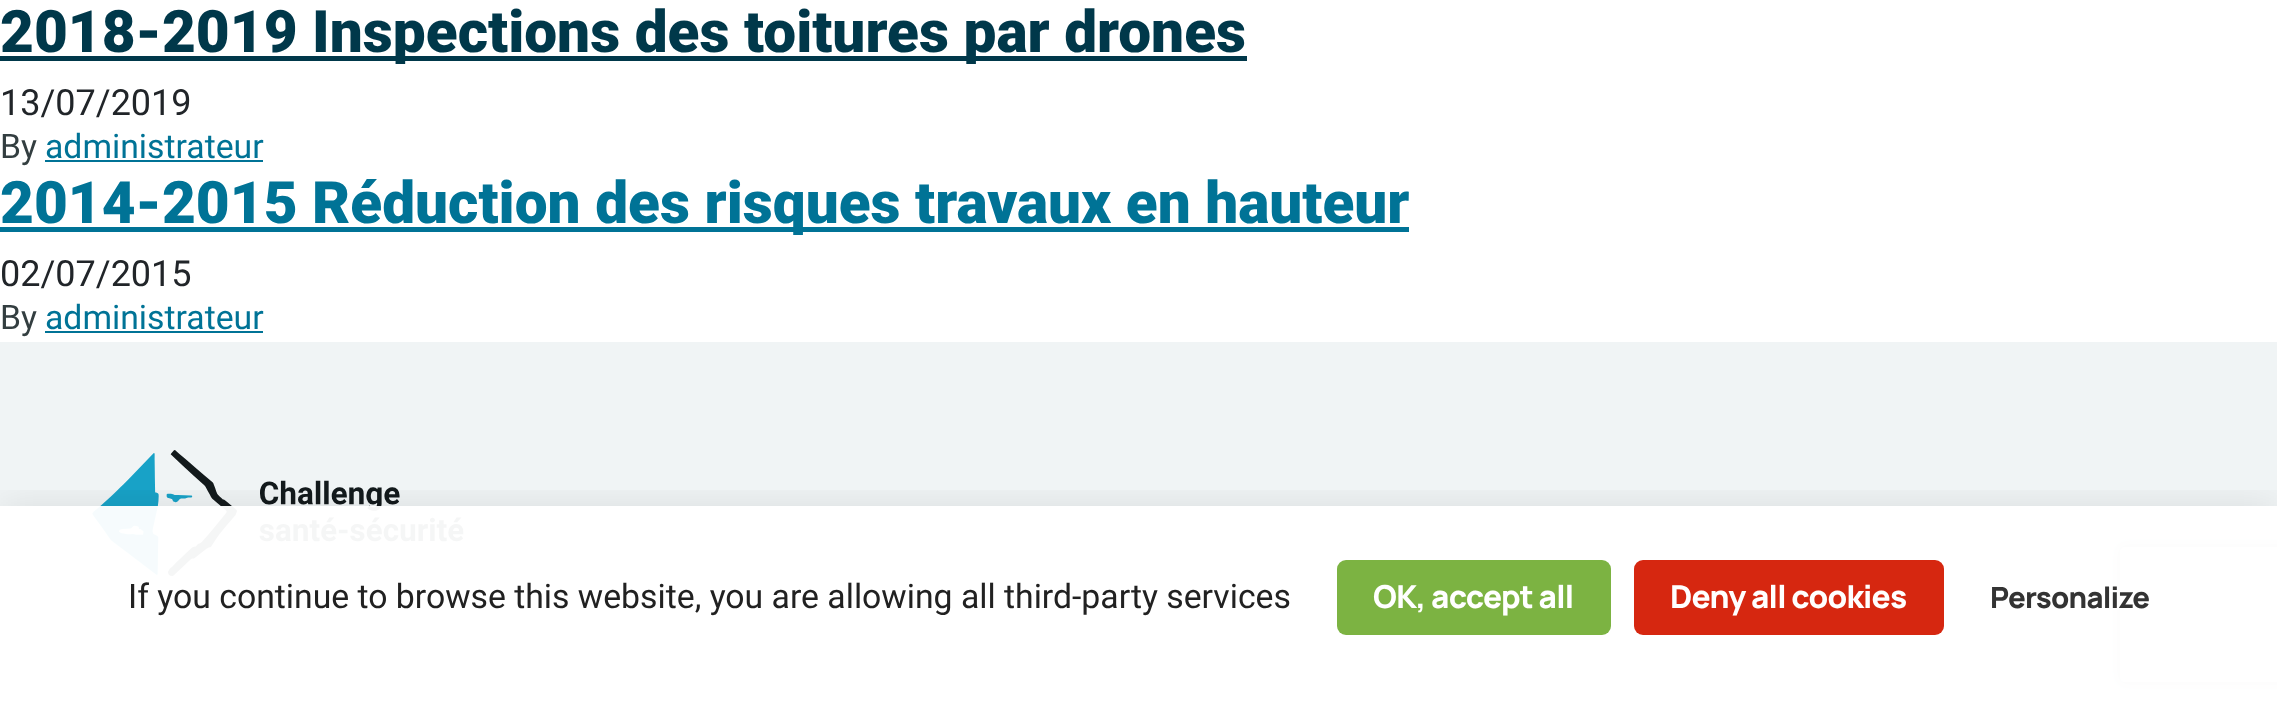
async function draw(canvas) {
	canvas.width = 2277;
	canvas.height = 712;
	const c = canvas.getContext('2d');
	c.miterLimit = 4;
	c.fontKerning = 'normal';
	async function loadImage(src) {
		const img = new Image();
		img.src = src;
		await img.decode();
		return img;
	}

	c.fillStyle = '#fff';
	c.fillRect(0, 0, 2277, 712);
	c.fillStyle = '#00384a';
	c.fillRect(0, 56, 1247, 5);
	c.font = '900 58.5px Roboto';
	c.fillText('2018-2019 Inspections des toitures par drones', 0, 52);
	c.font = '36px Roboto';
	c.fillStyle = '#212529';
	c.fillText('13/07/2019', 0, 115);
	c.font = '33.75px Roboto';
	c.fillStyle = '#333e40';
	c.fillText('By', 0, 158);
	c.fillStyle = '#007396';
	c.fillText('administrateur', 45, 158);
	c.fillRect(45, 160, 218, 2);
	c.fillRect(0, 227, 1409, 5);
	c.font = '900 58.5px Roboto';
	c.fillText('2014-2015 Réduction des risques travaux en hauteur', 0, 223);
	c.font = '36px Roboto';
	c.fillStyle = '#212529';
	c.fillText('02/07/2015', 0, 286);
	c.font = '33.75px Roboto';
	c.fillStyle = '#333e40';
	c.fillText('By', 0, 329);
	c.fillStyle = '#007396';
	c.fillText('administrateur', 45, 329);
	c.fillRect(45, 331, 218, 2);
	c.fillStyle = '#f0f4f5';
	c.fillRect(0, 342, 2277, 370);
	c.drawImage(await loadImage('img1.png'), 92, 450, 372, 126);
	c.save();
	c.beginPath();
	c.rect(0, 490, 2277, 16);
	c.clip();
	c.fillStyle = '#00000014';
	c.filter = 'blur(18px)';
	c.beginPath();
	c.rect(0, 502, 2277, 207);
	c.fill();
	c.filter = 'none';
	c.restore();
	c.save();
	c.beginPath();
	c.moveTo(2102, 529);
	c.lineTo(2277, 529);
	c.lineTo(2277, 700);
	c.lineTo(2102, 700);
	c.closePath();
	c.moveTo(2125, 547);
	c.lineTo(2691, 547);
	c.bezierCurveTo(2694, 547, 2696, 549, 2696, 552);
	c.lineTo(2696, 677);
	c.bezierCurveTo(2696, 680, 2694, 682, 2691, 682);
	c.lineTo(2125, 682);
	c.bezierCurveTo(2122, 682, 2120, 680, 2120, 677);
	c.lineTo(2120, 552);
	c.bezierCurveTo(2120, 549, 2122, 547, 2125, 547);
	c.closePath();
	c.clip('evenodd');
	c.fillStyle = '#808080';
	c.filter = 'blur(5.5px)';
	c.beginPath();
	c.roundRect(2120, 547, 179, 135, 5);
	c.fill();
	c.filter = 'none';
	c.restore();
	c.fillStyle = '#fffffff5';
	c.fillRect(0, 506, 2277, 206);
	c.fillStyle = '#212121';
	c.fillText('If you continue to browse this website, you are allowing all third-party services', 128, 608);
	c.fillStyle = '#7cb342';
	c.beginPath();
	c.roundRect(1337, 560, 274, 75, 9);
	c.fill();
	c.letterSpacing = '-0.75px';
	c.font = '800 31.5px Manrope';
	c.fillStyle = '#fff';
	c.fillText('OK, accept all', 1373, 608);
	c.fillStyle = '#d62710';
	c.beginPath();
	c.roundRect(1634, 560, 310, 75, 9);
	c.fill();
	c.fillStyle = '#fff';
	c.fillText('Deny all cookies', 1670, 608);
	c.font = '800 29.25px Manrope';
	c.fillStyle = '#333';
	c.fillText('Personalize', 1990, 608);
}

draw(document.querySelector('canvas'));
